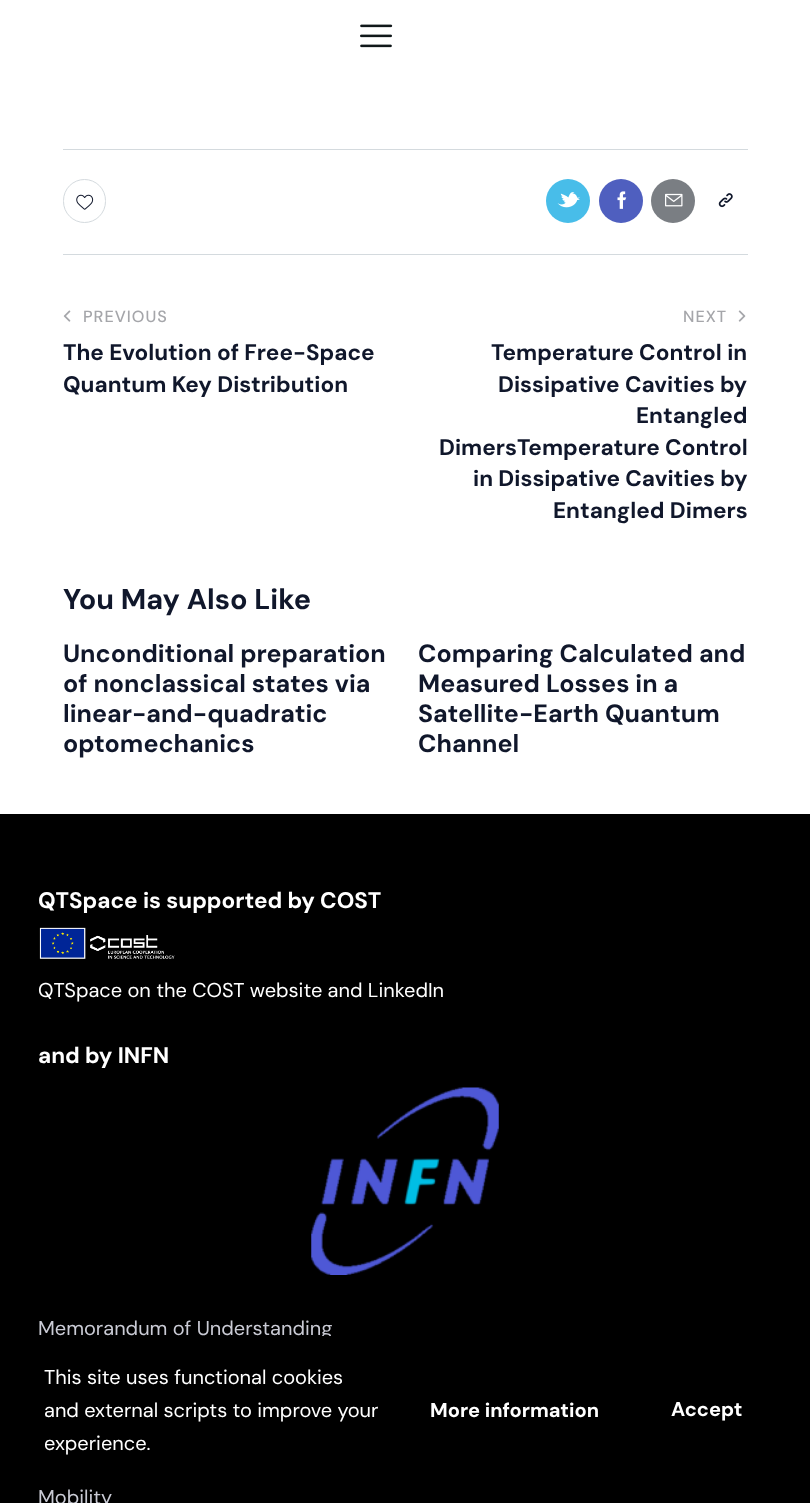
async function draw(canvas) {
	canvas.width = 810;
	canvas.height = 1503;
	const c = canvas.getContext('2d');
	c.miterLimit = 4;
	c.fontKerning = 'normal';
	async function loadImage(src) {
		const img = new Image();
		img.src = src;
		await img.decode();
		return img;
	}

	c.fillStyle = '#fff';
	c.fillRect(0, 0, 810, 1503);
	c.drawImage(await loadImage('img1.png'), 360, 24, 33, 24);
	c.fillStyle = '#d4dade';
	c.fillRect(63, 149, 685, 1);
	c.beginPath();
	c.roundRect(63.5, 179.5, 42, 43, 21);
	c.strokeStyle = '#d4dade';
	c.stroke();
	c.drawImage(await loadImage('img2.png'), 76, 194, 18, 16);
	c.fillStyle = '#48bde9';
	c.beginPath();
	c.arc(568, 201, 22, 0, 2 * Math.PI);
	c.fill();
	c.drawImage(await loadImage('img3.png'), 557, 192, 23, 16);
	c.fillStyle = '#4f5fbf';
	c.beginPath();
	c.arc(621, 201, 22, 0, 2 * Math.PI);
	c.fill();
	c.drawImage(await loadImage('img4.png'), 617, 191, 10, 18);
	c.fillStyle = '#7a7e83';
	c.beginPath();
	c.arc(673, 201, 22, 0, 2 * Math.PI);
	c.fill();
	c.drawImage(await loadImage('img5.png'), 665, 193, 18, 14);
	c.drawImage(await loadImage('img6.png'), 718, 193, 15, 15);
	c.fillStyle = '#d4dade';
	c.fillRect(63, 254, 685, 1);
	c.drawImage(await loadImage('img7.png'), 63, 310, 8, 12);
	c.letterSpacing = '1px';
	c.font = '500 16.25px DM Sans';
	c.fillStyle = '#a5a6aa';
	c.fillText('PREVIOUS', 83, 322);
	c.letterSpacing = '0px';
	c.font = 'bold 22.5px DM Sans';
	c.fillStyle = '#10172b';
	c.fillText('The Evolution of Free-Space', 63, 360);
	c.fillText('Quantum Key Distribution', 63, 392);
	c.letterSpacing = '1px';
	c.font = '500 16.25px DM Sans';
	c.fillStyle = '#a5a6aa';
	c.fillText('NEXT', 683, 322);
	c.drawImage(await loadImage('img8.png'), 738, 310, 8, 12);
	c.letterSpacing = '0px';
	c.font = 'bold 22.5px DM Sans';
	c.fillStyle = '#10172b';
	for (const [text, x, y] of [
		['Temperature Control in', 491, 360],
		['Dissipative Cavities by', 498, 392],
		['Entangled', 636, 423],
		['DimersTemperature Control', 439, 455],
		['in Dissipative Cavities by', 473, 486],
		['Entangled Dimers', 553, 518],
	]) {
		c.fillText(text, x, y);
	}
	c.font = 'bold 28.75px DM Sans';
	c.fillText('You May Also Like', 63, 609);
	c.font = 'bold 25px DM Sans';
	for (const [text, x, y] of [
		['Unconditional preparation', 63, 662],
		['of nonclassical states via', 63, 692],
		['linear-and-quadratic', 63, 722],
		['optomechanics', 63, 752],
		['Comparing Calculated and', 418, 662],
		['Measured Losses in a', 418, 692],
		['Satellite-Earth Quantum', 418, 722],
		['Channel', 418, 752],
	]) {
		c.fillText(text, x, y);
	}
	c.fillStyle = '#000';
	c.fillRect(0, 814, 810, 689);
	c.font = 'bold 22.5px DM Sans';
	c.fillStyle = '#fff';
	c.fillText('QTSpace is supported by COST', 38, 908);
	c.drawImage(await loadImage('img9.png'), 39, 927, 136, 32);
	c.font = '20px DM Sans';
	c.fillText('QTSpace on the COST website and LinkedIn', 38, 997);
	c.font = 'bold 22.5px DM Sans';
	c.fillText('and by INFN', 38, 1063);
	c.drawImage(await loadImage('img10.png'), 311, 1087, 188, 188);
	c.font = '20px DM Sans';
	c.fillStyle = '#cacbd5';
	c.fillText('Memorandum of Understanding', 38, 1335);
	c.fillText('Mobility', 38, 1504);
	c.fillStyle = '#00000033';
	c.filter = 'blur(2.5px)';
	c.beginPath();
	c.roundRect(19, 1339, 772, 149, 6);
	c.fill();
	c.filter = 'none';
	c.fillStyle = '#000';
	c.beginPath();
	c.roundRect(19, 1336, 772, 149, 6);
	c.fill();
	c.fillStyle = '#fff';
	for (const [text, x, y] of [
		['This site uses functional cookies', 44, 1384],
		['and external scripts to improve your', 44, 1417],
		['experience.', 44, 1450],
	]) {
		c.fillText(text, x, y);
	}
	c.font = 'bold 20px DM Sans';
	c.fillText('More information', 430, 1417);
	c.fillText('Accept', 671, 1416);
}

draw(document.querySelector('canvas'));
